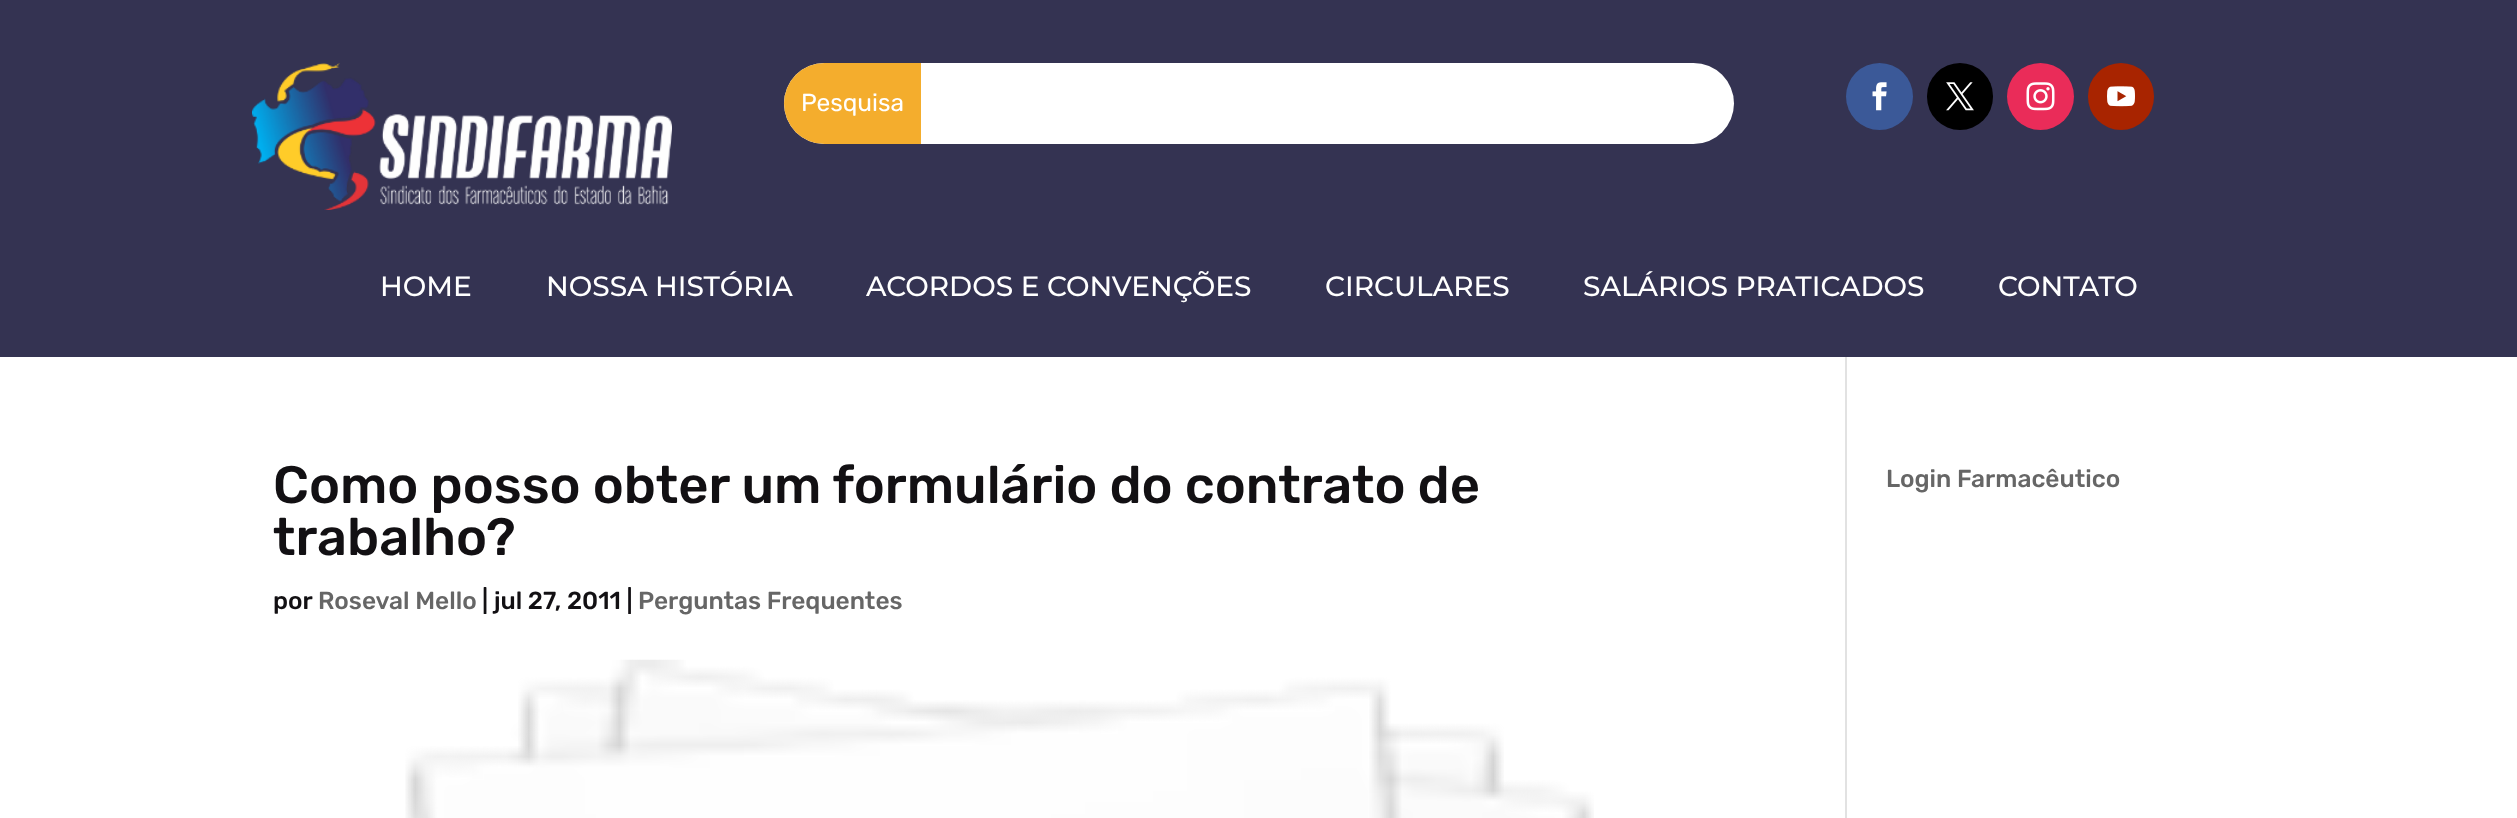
async function draw(canvas) {
	canvas.width = 2517;
	canvas.height = 818;
	const c = canvas.getContext('2d');
	c.miterLimit = 4;
	c.fontKerning = 'normal';
	async function loadImage(src) {
		const img = new Image();
		img.src = src;
		await img.decode();
		return img;
	}

	c.fillStyle = '#fff';
	c.fillRect(0, 0, 2517, 818);
	c.fillStyle = '#343352';
	c.fillRect(0, 0, 2517, 357);
	c.drawImage(await loadImage('img1.png'), 252, 63, 420, 147);
	c.fillStyle = '#fff';
	c.beginPath();
	c.roundRect(784, 63, 950, 81, 40.5);
	c.fill();
	c.fillStyle = '#f4ad2d';
	c.beginPath();
	c.roundRect(784, 63, 137, 81, [40.5, 0, 0, 40.5]);
	c.fill();
	c.font = '300 24.5px "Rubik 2"';
	c.fillStyle = '#fff';
	c.fillText('Pesquisa', 801, 111);
	c.fillStyle = '#3b5998';
	c.beginPath();
	c.arc(1879.5, 96.5, 33.5, 0, 2 * Math.PI);
	c.fill();
	c.drawImage(await loadImage('img2.png'), 1872, 82, 15, 29);
	c.fillStyle = '#000';
	c.beginPath();
	c.roundRect(1927, 63, 66, 67, 33);
	c.fill();
	c.drawImage(await loadImage('img3.png'), 1946, 82, 28, 29);
	c.fillStyle = '#ea2c59';
	c.beginPath();
	c.arc(2040.5, 96.5, 33.5, 0, 2 * Math.PI);
	c.fill();
	c.drawImage(await loadImage('img4.png'), 2026, 82, 29, 29);
	c.fillStyle = '#a82400';
	c.beginPath();
	c.roundRect(2088, 63, 66, 67, 33);
	c.fill();
	c.drawImage(await loadImage('img5.png'), 2107, 86, 28, 21);
	c.font = '100 28px Montserrat';
	c.fillStyle = '#fff';
	for (const [text, x, y] of [
		['HOME', 380, 296],
		['NOSSA HISTÓRIA', 546, 296],
		['ACORDOS E CONVENÇÕES', 866, 296],
		['CIRCULARES', 1325, 296],
		['SALÁRIOS PRATICADOS', 1583, 296],
		['CONTATO', 1998, 296],
	]) {
		c.fillText(text, x, y);
	}
	c.fillStyle = '#e2e2e2';
	c.fillRect(1845, 357, 2, 461);
	c.font = '300 52.5px Rubik';
	c.fillStyle = '#121013';
	c.fillText('Como posso obter um formulário do contrato de', 273, 503);
	c.fillText('trabalho?', 273, 555);
	c.font = '300 24.5px Rubik';
	c.fillText('por', 273, 609);
	c.fillStyle = '#666';
	c.fillText('Roseval Mello', 318, 609);
	c.fillStyle = '#121013';
	c.fillText('| jul 27, 2011 |', 482, 609);
	c.fillStyle = '#666';
	c.fillText('Perguntas Frequentes', 638, 609);
	c.drawImage(await loadImage('img6.png'), 405, 659, 1189, 159);
	c.fillText('Login Farmacêutico', 1886, 487);
}

draw(document.querySelector('canvas'));
